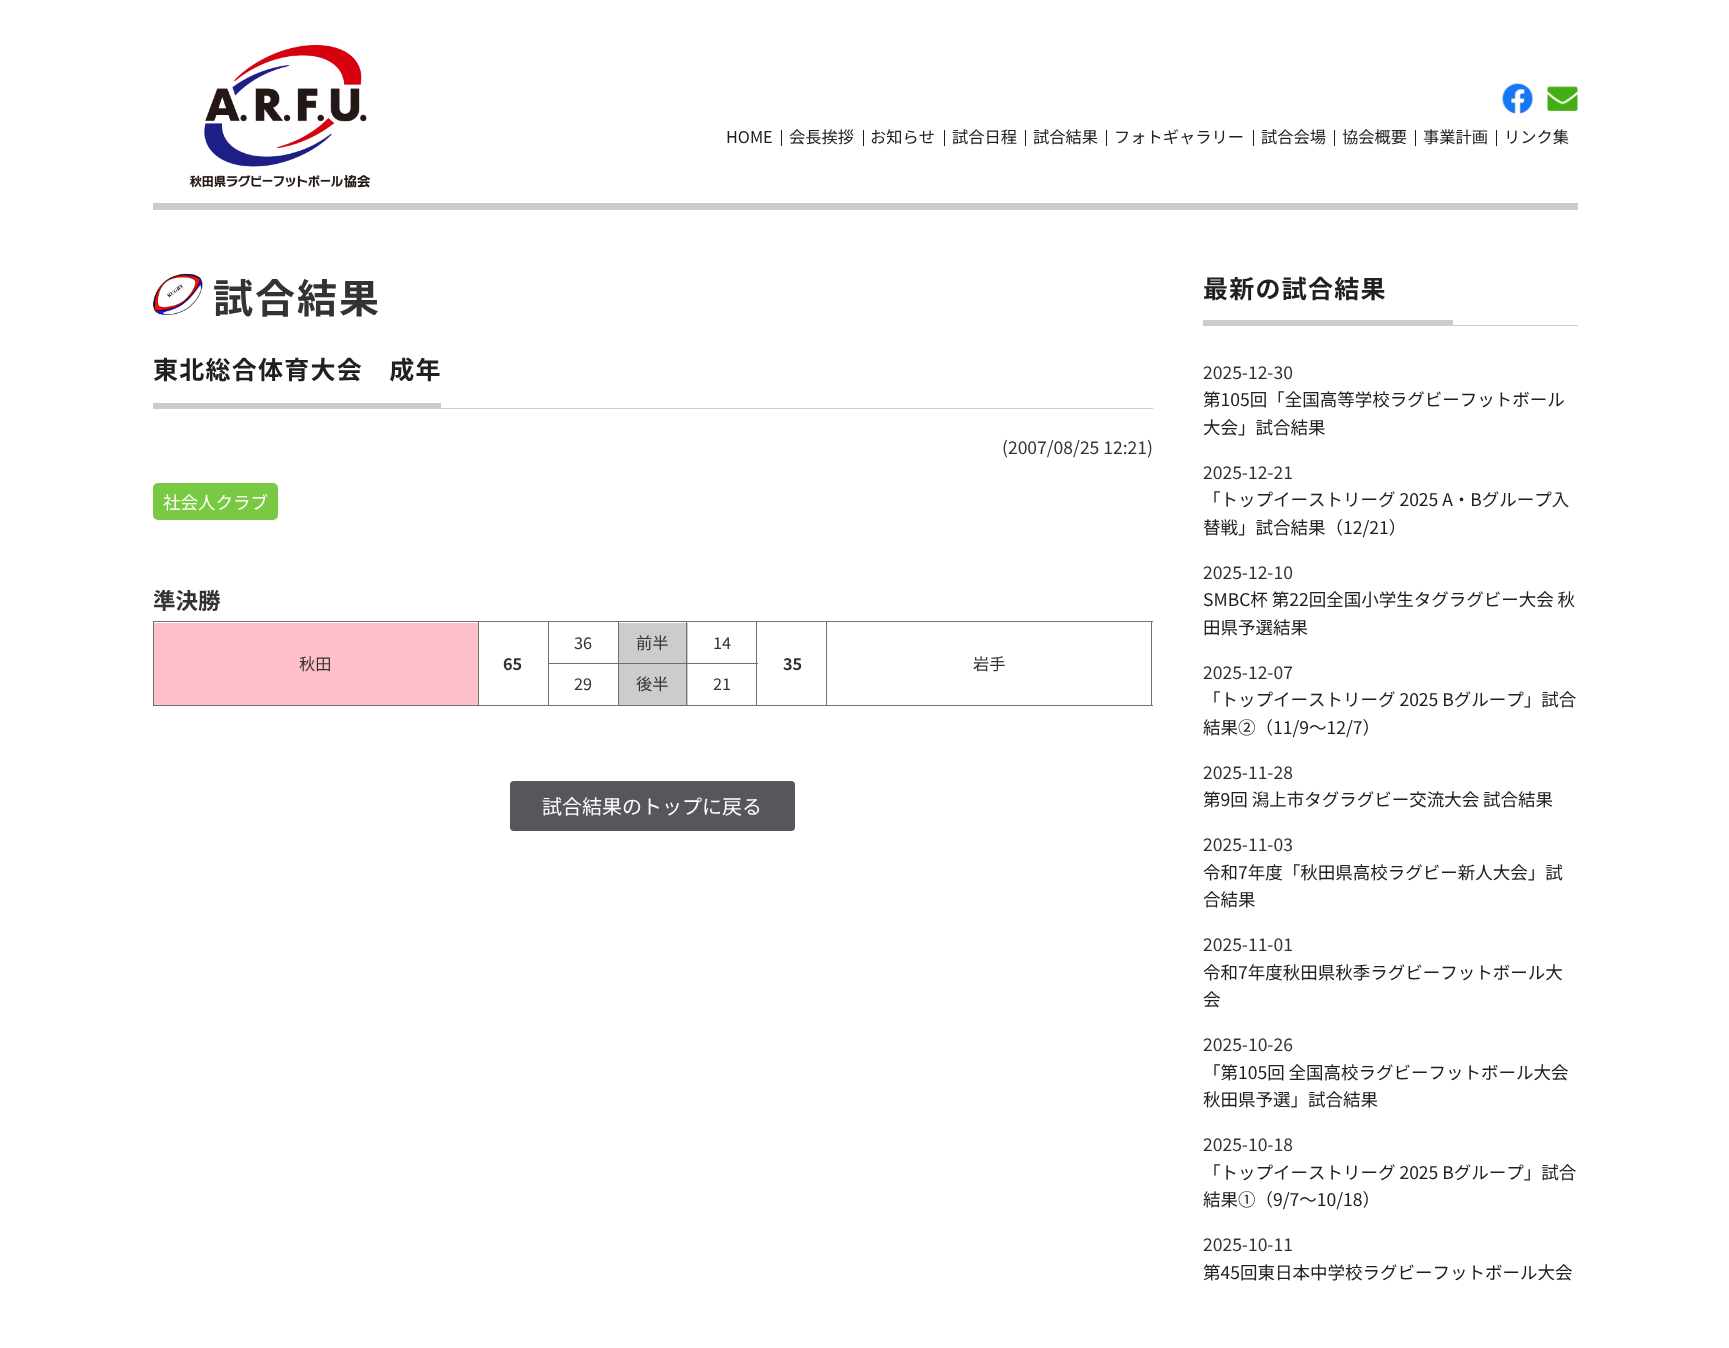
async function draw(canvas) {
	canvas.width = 1729;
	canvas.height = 1348;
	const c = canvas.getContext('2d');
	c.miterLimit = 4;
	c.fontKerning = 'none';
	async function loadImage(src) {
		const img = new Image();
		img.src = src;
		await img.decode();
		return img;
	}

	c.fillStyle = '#fff';
	c.fillRect(0, 0, 1729, 1348);
	c.drawImage(await loadImage('img1.png'), 190, 45, 180, 143);
	c.drawImage(await loadImage('img2.png'), 1502, 83, 31, 31);
	c.drawImage(await loadImage('img3.png'), 1547, 86, 31, 25);
	c.font = '16.25px Noto Sans JP';
	c.fillStyle = '#202020';
	c.fillText('HOME', 726, 143);
	c.fillRect(781, 130, 1, 16);
	c.fillText('会長挨拶', 789, 143);
	c.fillRect(863, 130, 1, 16);
	c.fillText('お知らせ', 870, 143);
	c.fillRect(944, 130, 1, 16);
	c.fillText('試合日程', 952, 143);
	c.fillRect(1025, 130, 1, 16);
	c.fillText('試合結果', 1033, 143);
	c.fillRect(1106, 130, 1, 16);
	c.fillText('フォトギャラリー', 1114, 143);
	c.fillRect(1253, 130, 1, 16);
	c.fillText('試合会場', 1261, 143);
	c.fillRect(1334, 130, 1, 16);
	c.fillText('協会概要', 1342, 143);
	c.fillRect(1415, 130, 1, 16);
	c.fillText('事業計画', 1423, 143);
	c.fillRect(1496, 130, 1, 16);
	c.fillText('リンク集', 1504, 143);
	c.fillStyle = '#ccc';
	c.fillRect(153, 203, 1425, 7);
	c.drawImage(await loadImage('img4.png'), 153, 273, 50, 42);
	c.letterSpacing = '2px';
	c.font = 'bold 40px Noto Sans JP';
	c.fillStyle = '#333';
	c.fillText('試合結果', 213, 313);
	c.fillStyle = '#ccc';
	c.fillRect(153, 408, 1000, 1);
	c.letterSpacing = '1.25px';
	c.font = 'bold 25px Noto Sans JP';
	c.fillStyle = '#202020';
	c.fillText('東北総合体育大会　成年', 153, 379);
	c.fillStyle = '#ccc';
	c.fillRect(153, 403, 288, 5);
	c.letterSpacing = '0px';
	c.font = '17.5px Noto Sans JP';
	c.fillStyle = '#333';
	c.fillText('(2007/08/25 12:21)', 1002, 454);
	c.fillStyle = '#79c942';
	c.beginPath();
	c.roundRect(153, 483, 125, 37, 5);
	c.fill();
	c.fillStyle = '#fff';
	c.fillText('社会人クラブ', 163, 509);
	c.font = 'bold 22.5px Noto Sans JP';
	c.fillStyle = '#333';
	c.fillText('準決勝', 153, 609);
	for (const [x, y, w, h, color] of [
		[153, 621, 1000, 1, '#707070'],
		[1151, 621, 1, 85, '#707070'],
		[153, 705, 1000, 1, '#707070'],
		[153, 621, 1, 85, '#707070'],
	]) {
		c.fillStyle = color;
		c.fillRect(x, y, w, h);
	}
	c.font = '16.25px Noto Sans JP';
	c.fillStyle = '#333';
	c.fillText('36', 574, 649);
	for (const [x, y, w, h, color] of [
		[619, 623, 69, 40, '#ccc'],
		[686, 663, 72, 1, '#707070'],
		[619, 664, 69, 41, '#ccc'],
		[686, 663, 1, 43, '#707070'],
		[618, 663, 70, 1, '#707070'],
		[618, 663, 1, 43, '#707070'],
		[548, 663, 71, 1, '#707070'],
		[618, 621, 1, 43, '#707070'],
	]) {
		c.fillStyle = color;
		c.fillRect(x, y, w, h);
	}
	c.fillStyle = '#333';
	c.fillText('前半', 636, 649);
	c.fillStyle = '#707070';
	c.fillRect(686, 621, 1, 43);
	c.fillStyle = '#333';
	c.fillText('14', 713, 649);
	c.fillStyle = '#ffc0cb';
	c.fillRect(154, 623, 324, 82);
	c.fillStyle = '#333';
	c.fillText('秋田', 299, 670);
	c.fillStyle = '#707070';
	c.fillRect(478, 621, 1, 85);
	c.font = 'bold 16.25px Noto Sans JP';
	c.fillStyle = '#333';
	c.fillText('65', 503, 670);
	c.fillStyle = '#707070';
	c.fillRect(756, 621, 1, 85);
	c.fillStyle = '#333';
	c.fillText('35', 783, 670);
	c.fillStyle = '#707070';
	c.fillRect(826, 621, 1, 85);
	c.font = '16.25px Noto Sans JP';
	c.fillStyle = '#333';
	c.fillText('岩手', 973, 670);
	c.fillStyle = '#707070';
	c.fillRect(548, 621, 1, 85);
	c.fillStyle = '#333';
	for (const [text, x, y] of [
		['29', 574, 690],
		['後半', 636, 690],
		['21', 713, 690],
	]) {
		c.fillText(text, x, y);
	}
	c.fillStyle = '#56575c';
	c.beginPath();
	c.roundRect(510, 781, 285, 50, 4);
	c.fill();
	c.font = '20px Noto Sans JP';
	c.fillStyle = '#fff';
	c.fillText('試合結果のトップに戻る', 542, 814);
	c.fillStyle = '#ccc';
	c.fillRect(1203, 325, 375, 1);
	c.letterSpacing = '1.25px';
	c.font = 'bold 25px Noto Sans JP';
	c.fillStyle = '#202020';
	c.fillText('最新の試合結果', 1203, 298);
	c.fillStyle = '#ccc';
	c.fillRect(1203, 320, 250, 5);
	c.letterSpacing = '0px';
	c.font = '17.5px Noto Sans JP';
	c.fillStyle = '#333';
	c.fillText('2025-12-30', 1203, 379);
	c.fillStyle = '#202020';
	c.fillText('第105回「全国高等学校ラグビーフットボール', 1203, 406);
	c.fillText('大会」試合結果', 1203, 434);
	c.fillStyle = '#333';
	c.fillText('2025-12-21', 1203, 479);
	c.fillStyle = '#202020';
	c.fillText('「トップイーストリーグ 2025 A・Bグループ入', 1203, 506);
	c.fillText('替戦」試合結果（12/21）', 1203, 534);
	c.fillStyle = '#333';
	c.fillText('2025-12-10', 1203, 579);
	c.fillStyle = '#202020';
	c.fillText('SMBC杯 第22回全国小学生タグラグビー大会 秋', 1203, 606);
	c.fillText('田県予選結果', 1203, 634);
	c.fillStyle = '#333';
	c.fillText('2025-12-07', 1203, 679);
	c.fillStyle = '#202020';
	c.fillText('「トップイーストリーグ 2025 Bグループ」試合', 1203, 706);
	c.fillText('結果②（11/9～12/7）', 1203, 734);
	c.fillStyle = '#333';
	c.fillText('2025-11-28', 1203, 779);
	c.fillStyle = '#202020';
	c.fillText('第9回 潟上市タグラグビー交流大会 試合結果', 1203, 806);
	c.fillStyle = '#333';
	c.fillText('2025-11-03', 1203, 851);
	c.fillStyle = '#202020';
	c.fillText('令和7年度「秋田県高校ラグビー新人大会」試', 1203, 879);
	c.fillText('合結果', 1203, 906);
	c.fillStyle = '#333';
	c.fillText('2025-11-01', 1203, 951);
	c.fillStyle = '#202020';
	c.fillText('令和7年度秋田県秋季ラグビーフットボール大', 1203, 979);
	c.fillText('会', 1203, 1006);
	c.fillStyle = '#333';
	c.fillText('2025-10-26', 1203, 1051);
	c.fillStyle = '#202020';
	c.fillText('「第105回 全国高校ラグビーフットボール大会', 1203, 1079);
	c.fillText('秋田県予選」試合結果', 1203, 1106);
	c.fillStyle = '#333';
	c.fillText('2025-10-18', 1203, 1151);
	c.fillStyle = '#202020';
	c.fillText('「トップイーストリーグ 2025 Bグループ」試合', 1203, 1179);
	c.fillText('結果①（9/7～10/18）', 1203, 1206);
	c.fillStyle = '#333';
	c.fillText('2025-10-11', 1203, 1251);
	c.fillStyle = '#202020';
	c.fillText('第45回東日本中学校ラグビーフットボール大会', 1203, 1279);
}

draw(document.querySelector('canvas'));
